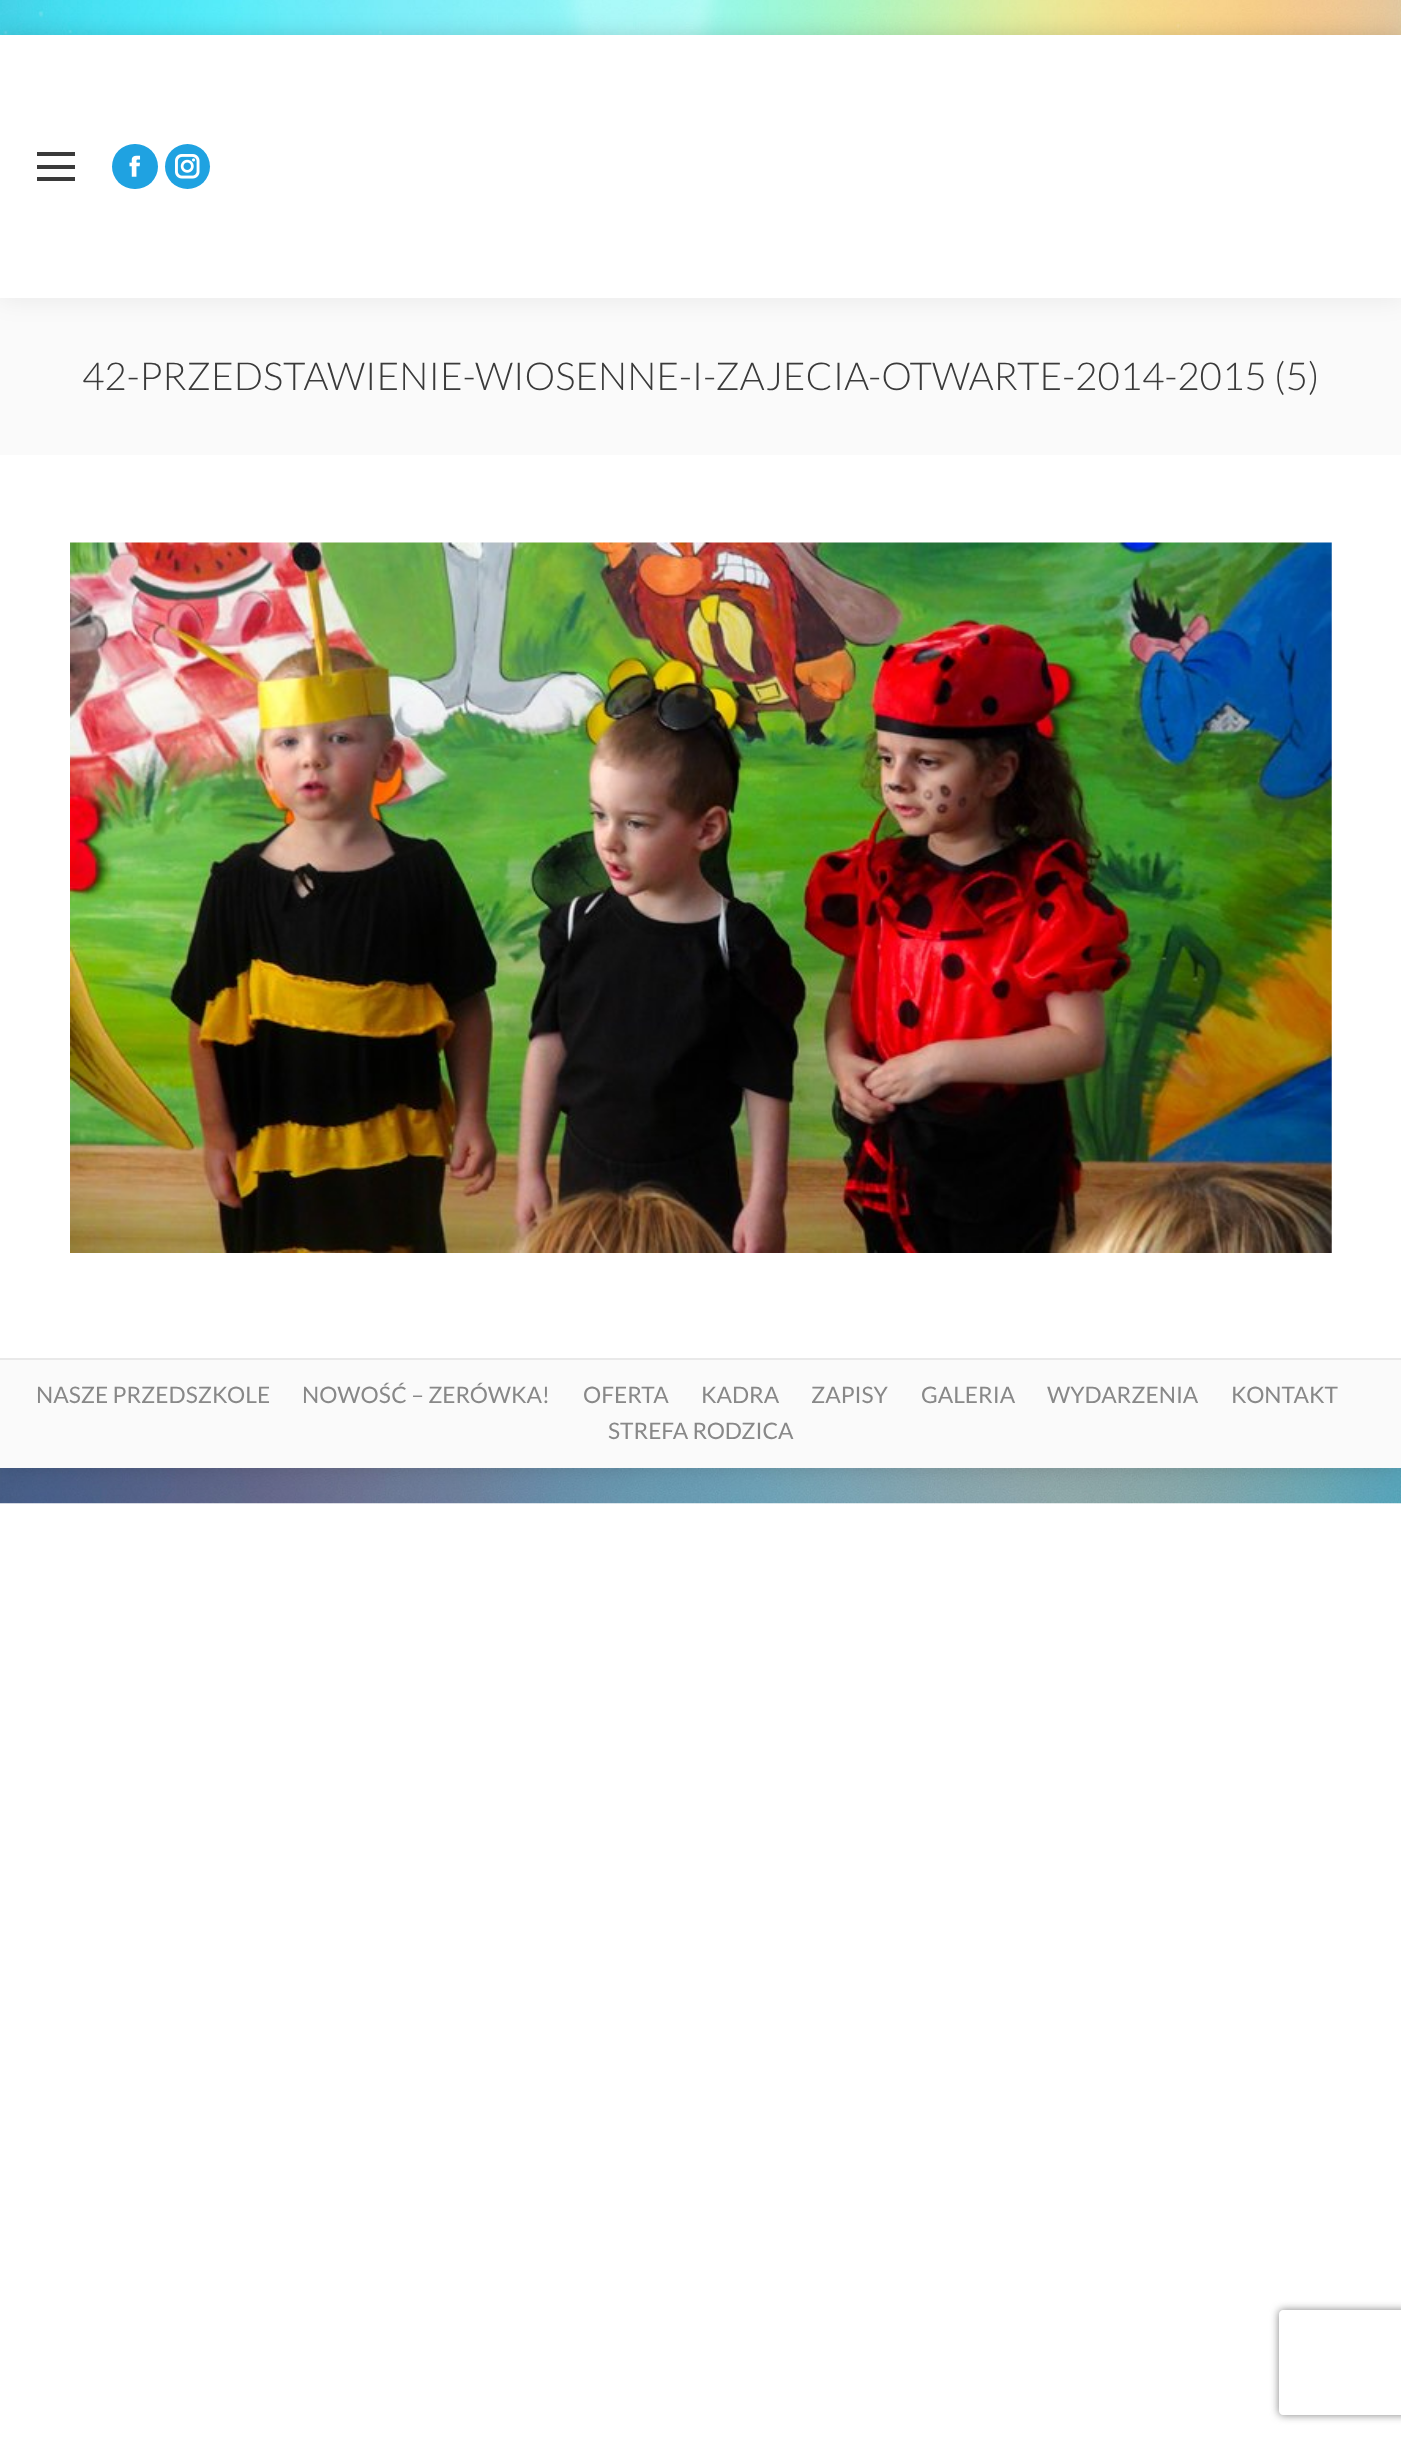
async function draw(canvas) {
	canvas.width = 1401;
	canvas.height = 2438;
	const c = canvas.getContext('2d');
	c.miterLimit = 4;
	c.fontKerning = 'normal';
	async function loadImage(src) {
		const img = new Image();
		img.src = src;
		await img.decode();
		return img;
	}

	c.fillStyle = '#fff';
	c.fillRect(0, 0, 1401, 2438);
	c.drawImage(await loadImage('img1.png'), 0, 0, 1401, 1504);
	c.fillStyle = '#00000026';
	c.filter = 'blur(10.5px)';
	c.beginPath();
	c.rect(0, 35, 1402, 1433);
	c.fill();
	c.filter = 'none';
	c.fillStyle = '#fff';
	c.fillRect(0, 455, 1401, 903);
	c.fillStyle = '#fafafa';
	c.fillRect(0, 298, 1401, 157);
	c.save();
	c.beginPath();
	c.rect(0, 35, 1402, 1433);
	c.clip();
	c.fillStyle = '#00000012';
	c.filter = 'blur(13px)';
	c.beginPath();
	c.rect(-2, 33, 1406, 266);
	c.fill();
	c.filter = 'none';
	c.restore();
	for (const [x, y, w, h, color] of [
		[0, 35, 1401, 263, '#fff'],
		[37, 152, 38, 4, '#3a3a3a'],
		[37, 165, 38, 4, '#3a3a3a'],
		[37, 177, 38, 4, '#3a3a3a'],
	]) {
		c.fillStyle = color;
		c.fillRect(x, y, w, h);
	}
	c.fillStyle = '#1fa2e1';
	c.beginPath();
	c.roundRect(112, 144, 46, 45, 22.5);
	c.fill();
	c.drawImage(await loadImage('img2.png'), 129, 155, 12, 22);
	c.beginPath();
	c.arc(187.5, 166.5, 22.5, 0, 2 * Math.PI);
	c.fill();
	c.drawImage(await loadImage('img3.png'), 175, 154, 25, 25);
	c.font = '300 38.5px Lato';
	c.fillStyle = '#3a3a3a';
	c.fillText('42-PRZEDSTAWIENIE-WIOSENNE-I-ZAJECIA-OTWARTE-2014-2015 (5)', 82, 390);
	c.drawImage(await loadImage('img4.png'), 70, 542, 1262, 711);
	c.fillStyle = '#fafafa';
	c.fillRect(0, 1360, 1401, 108);
	c.fillStyle = '#e9e9e9';
	c.fillRect(0, 1358, 1401, 2);
	c.font = '22.75px Lato';
	c.fillStyle = '#888';
	for (const [text, x, y] of [
		['NASZE PRZEDSZKOLE', 36, 1403],
		['NOWOŚĆ – ZERÓWKA!', 302, 1403],
		['OFERTA', 583, 1403],
		['KADRA', 701, 1403],
		['ZAPISY', 811, 1403],
		['GALERIA', 921, 1403],
		['WYDARZENIA', 1047, 1403],
		['KONTAKT', 1231, 1403],
		['STREFA RODZICA', 608, 1439],
	]) {
		c.fillText(text, x, y);
	}
	c.save();
	c.beginPath();
	c.moveTo(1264, 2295);
	c.lineTo(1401, 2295);
	c.lineTo(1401, 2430);
	c.lineTo(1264, 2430);
	c.closePath();
	c.moveTo(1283, 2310);
	c.lineTo(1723, 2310);
	c.bezierCurveTo(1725, 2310, 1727, 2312, 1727, 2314);
	c.lineTo(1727, 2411);
	c.bezierCurveTo(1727, 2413, 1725, 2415, 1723, 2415);
	c.lineTo(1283, 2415);
	c.bezierCurveTo(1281, 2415, 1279, 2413, 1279, 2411);
	c.lineTo(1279, 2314);
	c.bezierCurveTo(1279, 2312, 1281, 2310, 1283, 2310);
	c.closePath();
	c.clip('evenodd');
	c.fillStyle = '#808080';
	c.filter = 'blur(4.5px)';
	c.beginPath();
	c.roundRect(1279, 2310, 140, 105, 4);
	c.fill();
	c.filter = 'none';
	c.restore();
}

draw(document.querySelector('canvas'));
